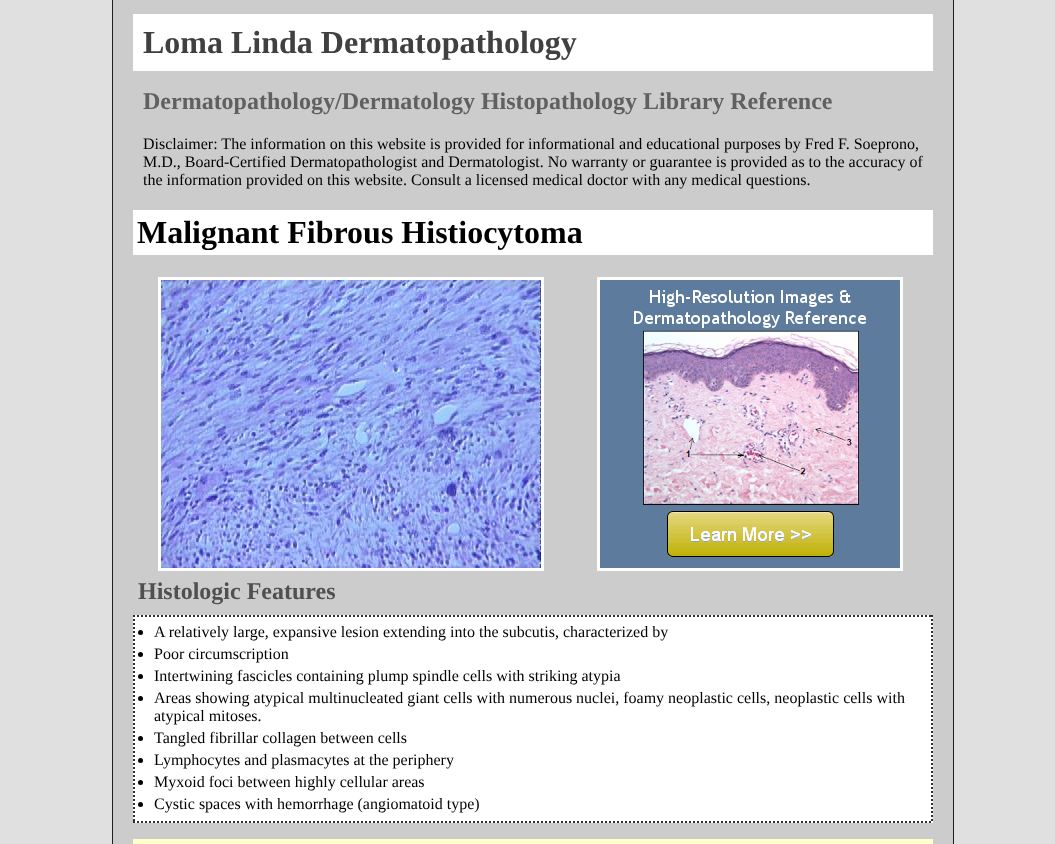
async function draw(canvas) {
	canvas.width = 1055;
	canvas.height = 844;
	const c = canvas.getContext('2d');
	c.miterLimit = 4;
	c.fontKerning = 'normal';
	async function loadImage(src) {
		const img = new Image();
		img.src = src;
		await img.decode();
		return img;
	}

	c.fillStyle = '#e0e0e0';
	c.fillRect(0, 0, 1055, 844);
	c.fillStyle = '#ccc';
	c.beginPath();
	c.rect(112.5, -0.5, 841, 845);
	c.fill();
	c.strokeStyle = '#202020';
	c.stroke();
	c.fillStyle = '#fff';
	c.fillRect(133, 14, 800, 57);
	c.font = 'bold 32px Liberation Serif';
	c.fillStyle = '#404040';
	c.fillText('Loma Linda Dermatopathology', 143, 53);
	c.font = 'bold 24px Liberation Serif';
	c.fillStyle = '#606060';
	c.fillText('Dermatopathology/Dermatology Histopathology Library Reference', 143, 109);
	c.font = '16px Liberation Serif';
	c.fillStyle = '#000';
	for (const [text, x, y] of [
		['Disclaimer: The information on this website is provided for informational and educational purposes by Fred F. Soeprono,', 143, 149],
		['M.D., Board-Certified Dermatopathologist and Dermatologist. No warranty or guarantee is provided as to the accuracy of', 143, 167],
		['the information provided on this website. Consult a licensed medical doctor with any medical questions.', 143, 185],
	]) {
		c.fillText(text, x, y);
	}
	c.fillStyle = '#fff';
	c.fillRect(133, 210, 800, 45);
	c.font = 'bold 32px Liberation Serif';
	c.fillStyle = '#000';
	c.fillText('Malignant Fibrous Histiocytoma', 137, 243);
	c.strokeStyle = '#fff';
	c.lineWidth = 3;
	c.strokeRect(159.5, 278.5, 383, 291);
	c.strokeRect(598.5, 278.5, 303, 291);
	c.drawImage(await loadImage('img1.png'), 600, 280, 300, 288);
	c.drawImage(await loadImage('img2.png'), 161, 280, 380, 288);
	c.font = 'bold 24px Liberation Serif';
	c.fillStyle = '#505050';
	c.fillText('Histologic Features', 138, 599);
	c.fillStyle = '#fff';
	c.fillRect(133, 615, 800, 208);
	c.beginPath();
	c.moveTo(133, 616);
	c.lineTo(933, 616);
	c.strokeStyle = '#303030';
	c.lineWidth = 2;
	c.setLineDash([2, 2]);
	c.stroke();
	c.beginPath();
	c.moveTo(932, 615);
	c.lineTo(932, 823);
	c.stroke();
	c.beginPath();
	c.moveTo(133, 822);
	c.lineTo(933, 822);
	c.stroke();
	c.beginPath();
	c.moveTo(134, 615);
	c.lineTo(134, 823);
	c.stroke();
	c.fillStyle = '#000';
	c.beginPath();
	c.arc(140.5, 632.5, 2.5, 0, 2 * Math.PI);
	c.fill();
	c.font = '16px Liberation Serif';
	c.fillText('A relatively large, expansive lesion extending into the subcutis, characterized by', 154, 637);
	c.beginPath();
	c.arc(140.5, 654.5, 2.5, 0, 2 * Math.PI);
	c.fill();
	c.fillText('Poor circumscription', 154, 659);
	c.beginPath();
	c.arc(140.5, 676.5, 2.5, 0, 2 * Math.PI);
	c.fill();
	c.fillText('Intertwining fascicles containing plump spindle cells with striking atypia', 154, 681);
	c.beginPath();
	c.arc(140.5, 698.5, 2.5, 0, 2 * Math.PI);
	c.fill();
	c.fillText('Areas showing atypical multinucleated giant cells with numerous nuclei, foamy neoplastic cells, neoplastic cells with', 154, 703);
	c.fillText('atypical mitoses.', 154, 721);
	c.beginPath();
	c.arc(140.5, 738.5, 2.5, 0, 2 * Math.PI);
	c.fill();
	c.fillText('Tangled fibrillar collagen between cells', 154, 743);
	c.beginPath();
	c.arc(140.5, 760.5, 2.5, 0, 2 * Math.PI);
	c.fill();
	c.fillText('Lymphocytes and plasmacytes at the periphery', 154, 765);
	c.beginPath();
	c.arc(140.5, 782.5, 2.5, 0, 2 * Math.PI);
	c.fill();
	c.fillText('Myxoid foci between highly cellular areas', 154, 787);
	c.beginPath();
	c.arc(140.5, 804.5, 2.5, 0, 2 * Math.PI);
	c.fill();
	c.fillText('Cystic spaces with hemorrhage (angiomatoid type)', 154, 809);
	c.fillStyle = '#ffc';
	c.fillRect(133, 839, 800, 5);
}

draw(document.querySelector('canvas'));
